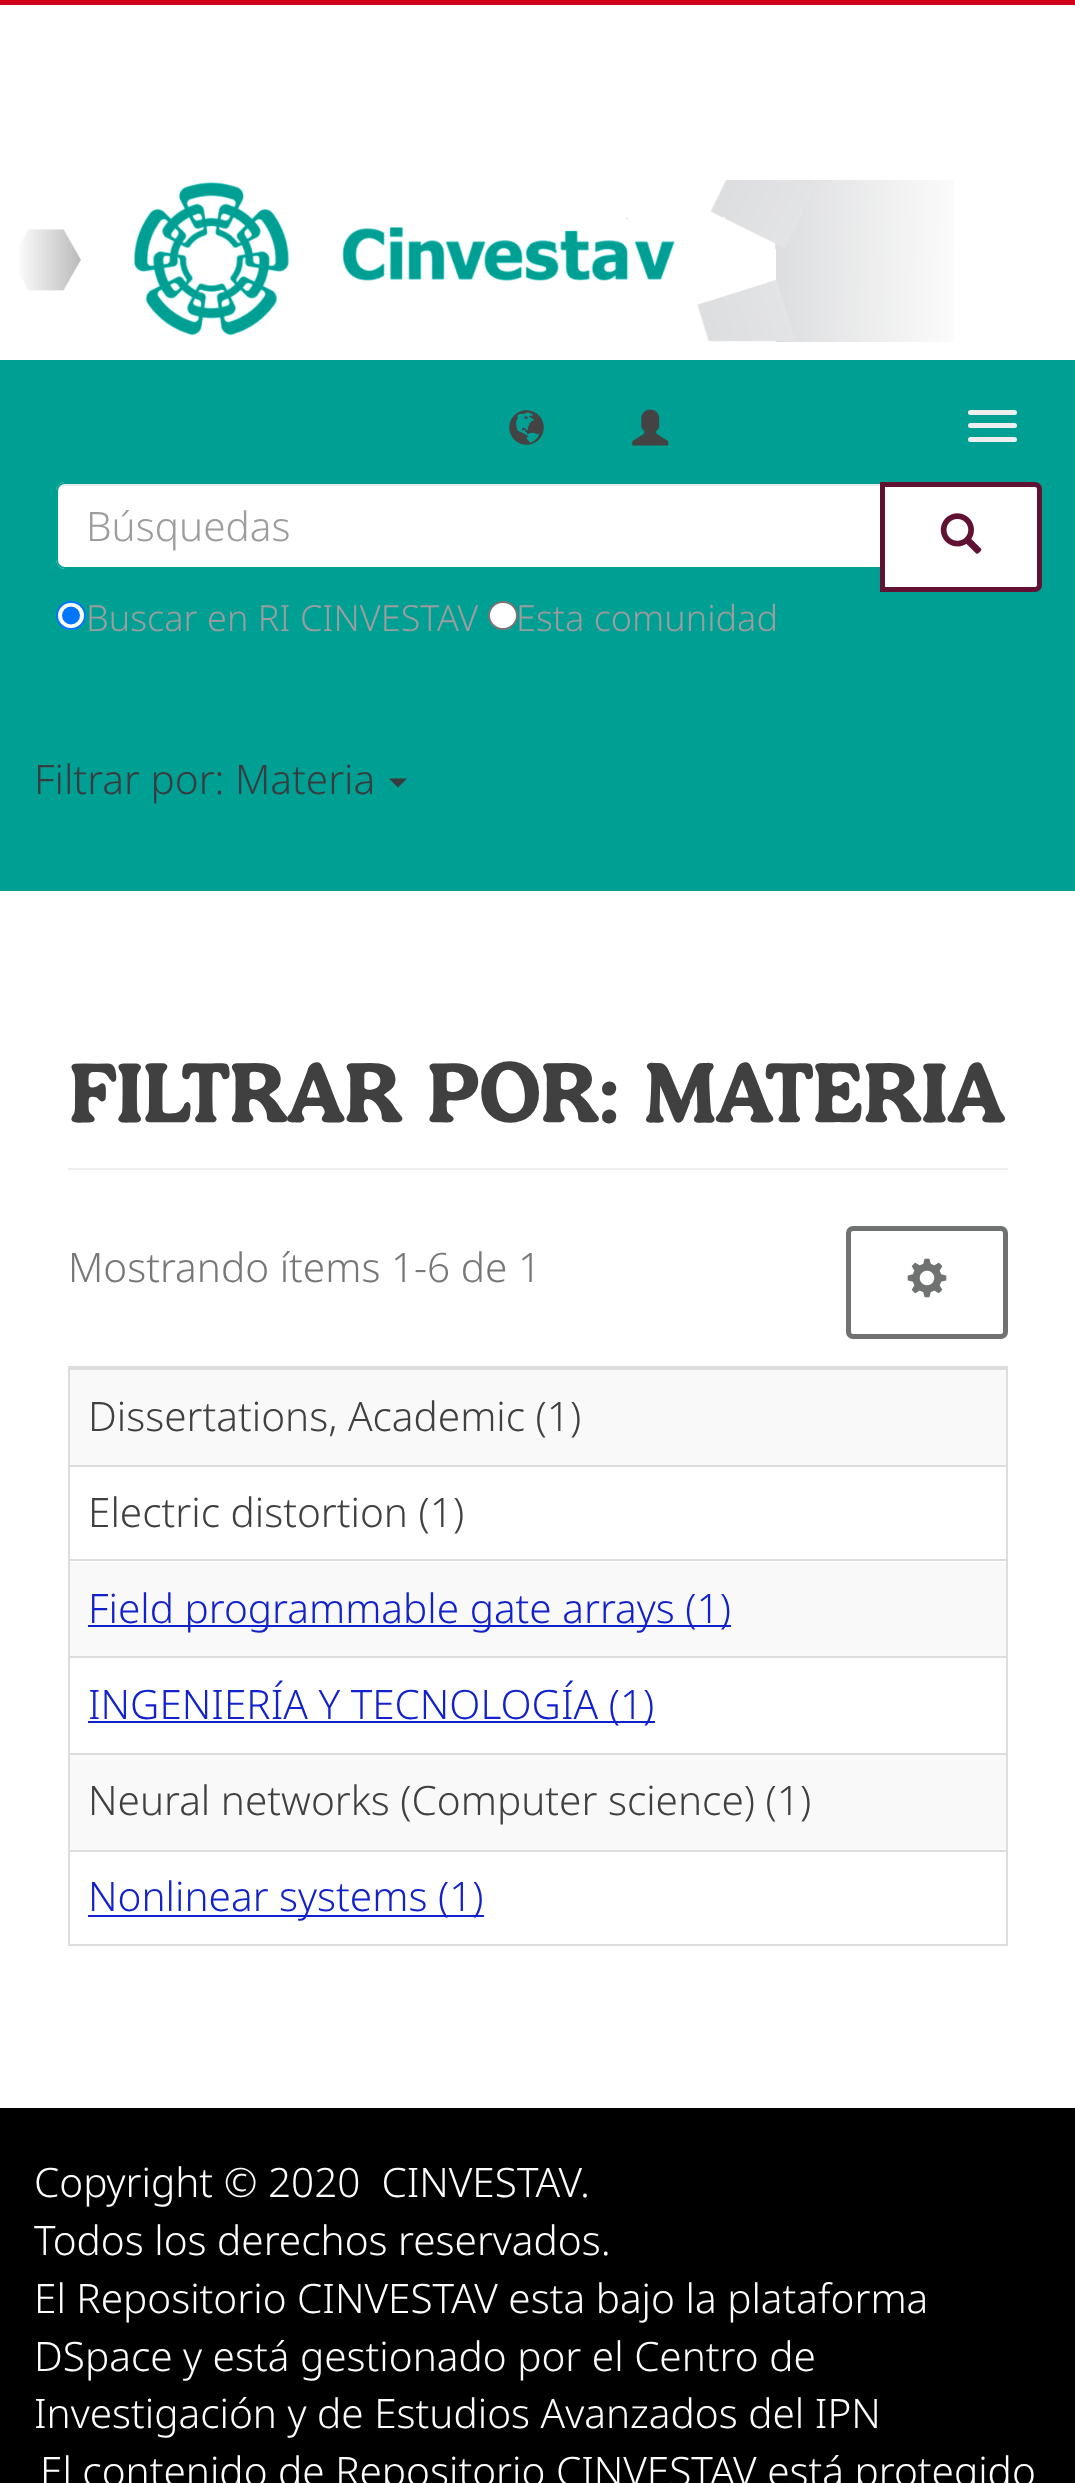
async function draw(canvas) {
	canvas.width = 1075;
	canvas.height = 2483;
	const c = canvas.getContext('2d');
	c.miterLimit = 4;
	c.fontKerning = 'normal';
	async function loadImage(src) {
		const img = new Image();
		img.src = src;
		await img.decode();
		return img;
	}

	c.fillStyle = '#fff';
	c.fillRect(0, 0, 1075, 2483);
	c.fillStyle = '#d0021b';
	c.fillRect(0, 0, 1075, 5);
	c.drawImage(await loadImage('img1.png'), 19, 180, 935, 162);
	c.fillStyle = '#009f94';
	c.fillRect(0, 360, 1075, 531);
	c.drawImage(await loadImage('img2.png'), 509, 410, 35, 35);
	c.drawImage(await loadImage('img3.png'), 632, 409, 37, 37);
	c.fillStyle = '#eee';
	c.beginPath();
	c.roundRect(968, 410, 49, 5, 2.5);
	c.fill();
	c.beginPath();
	c.roundRect(968, 423, 49, 5, 2.5);
	c.fill();
	c.beginPath();
	c.roundRect(968, 437, 49, 5, 2.5);
	c.fill();
	c.fillStyle = '#fff';
	c.beginPath();
	c.roundRect(56, 482, 826, 87, [9, 0, 0, 9]);
	c.fill();
	c.fillStyle = '#ececec';
	c.beginPath();
	c.moveTo(65, 486);
	c.lineTo(880, 486);
	c.lineTo(880, 484);
	c.lineTo(66, 484);
	c.bezierCurveTo(63, 484, 60, 486, 59, 489);
	c.bezierCurveTo(61, 487, 63, 486, 65, 486);
	c.closePath();
	c.fill();
	c.beginPath();
	c.roundRect(57, 483, 824, 85, [8, 0, 0, 8]);
	c.strokeStyle = '#009f94';
	c.lineWidth = 2;
	c.stroke();
	c.font = '300 40.5px Noto Sans';
	c.fillStyle = '#9d9d9d';
	c.fillText('Búsquedas', 86, 541);
	c.fillStyle = '#fff';
	c.beginPath();
	c.roundRect(882.5, 484.5, 157, 105, [0, 4.5, 4.5, 0]);
	c.fill();
	c.strokeStyle = '#611232';
	c.lineWidth = 5;
	c.stroke();
	c.drawImage(await loadImage('img4.png'), 940, 513, 42, 41);
	c.beginPath();
	c.roundRect(57, 602, 28, 27, 13.5);
	c.fill();
	c.strokeStyle = '#0075ff';
	c.lineWidth = 2;
	c.stroke();
	c.fillStyle = '#0075ff';
	c.beginPath();
	c.arc(71, 615.5, 9, 0, 2 * Math.PI);
	c.fill();
	c.font = '300 36px Noto Sans';
	c.fillStyle = '#9d9d9d';
	c.fillText('Buscar en RI CINVESTAV', 86, 631);
	c.fillStyle = '#fff';
	c.beginPath();
	c.roundRect(489, 602, 28, 27, 13.5);
	c.fill();
	c.strokeStyle = '#767676';
	c.stroke();
	c.fillStyle = '#9d9d9d';
	c.fillText('Esta comunidad', 516, 631);
	c.font = '300 40.5px Noto Sans';
	c.fillStyle = '#393c3e';
	c.fillText('Filtrar por: Materia', 34, 794);
	c.beginPath();
	c.moveTo(389, 778.5);
	c.lineTo(407, 778.5);
	c.lineTo(398, 787.5);
	c.closePath();
	c.fill();
	c.fillStyle = '#eee';
	c.fillRect(68, 1168, 940, 2);
	c.font = 'bold 85.5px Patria';
	c.fillStyle = '#404041';
	c.fillText('FILTRAR POR: MATERIA', 68, 1122);
	c.font = '300 40.5px Noto Sans';
	c.fillStyle = '#777';
	c.fillText('Mostrando ítems 1-6 de 1', 68, 1282);
	c.beginPath();
	c.roundRect(848.5, 1228.5, 157, 108, 4.5);
	c.strokeStyle = '#6f7271';
	c.lineWidth = 5;
	c.stroke();
	c.drawImage(await loadImage('img5.png'), 907, 1258, 40, 40);
	c.strokeStyle = '#ddd';
	c.lineWidth = 2;
	c.strokeRect(69, 1367, 938, 578);
	c.fillStyle = '#f9f9f9';
	c.fillRect(70, 1370, 936, 95);
	c.fillStyle = '#ddd';
	c.fillRect(70, 1368, 936, 2);
	c.fillStyle = '#404041';
	c.fillText('Dissertations, Academic (1)', 88, 1431);
	c.fillStyle = '#ddd';
	c.fillRect(70, 1465, 936, 2);
	c.fillStyle = '#404041';
	c.fillText('Electric distortion (1)', 88, 1527);
	for (const [x, y, w, h, color] of [
		[70, 1562, 936, 94, '#f9f9f9'],
		[70, 1559, 936, 2, '#ddd'],
		[88, 1625, 643, 2, '#12c'],
	]) {
		c.fillStyle = color;
		c.fillRect(x, y, w, h);
	}
	c.fillText('Field programmable gate arrays (1)', 88, 1623);
	c.fillStyle = '#ddd';
	c.fillRect(70, 1656, 936, 2);
	c.fillStyle = '#12c';
	c.fillRect(88, 1721, 567, 2);
	c.fillText('INGENIERÍA Y TECNOLOGÍA (1)', 88, 1719);
	c.fillStyle = '#f9f9f9';
	c.fillRect(70, 1755, 936, 95);
	c.fillStyle = '#ddd';
	c.fillRect(70, 1753, 936, 2);
	c.fillStyle = '#404041';
	c.fillText('Neural networks (Computer science) (1)', 88, 1815);
	c.fillStyle = '#ddd';
	c.fillRect(70, 1850, 936, 2);
	c.fillStyle = '#12c';
	c.fillRect(88, 1915, 396, 2);
	c.fillText('Nonlinear systems (1)', 88, 1911);
	c.fillStyle = '#000';
	c.fillRect(0, 2108, 1075, 375);
	c.fillStyle = '#fff';
	for (const [text, x, y] of [
		['Copyright © 2020  CINVESTAV.', 34, 2197],
		['Todos los derechos reservados.', 34, 2255],
		['El Repositorio CINVESTAV esta bajo la plataforma', 34, 2313],
		['DSpace y está gestionado por el Centro de', 34, 2371],
		['Investigación y de Estudios Avanzados del IPN', 34, 2428],
		['El contenido de Repositorio CINVESTAV está protegido', 40, 2486],
	]) {
		c.fillText(text, x, y);
	}
}

draw(document.querySelector('canvas'));
